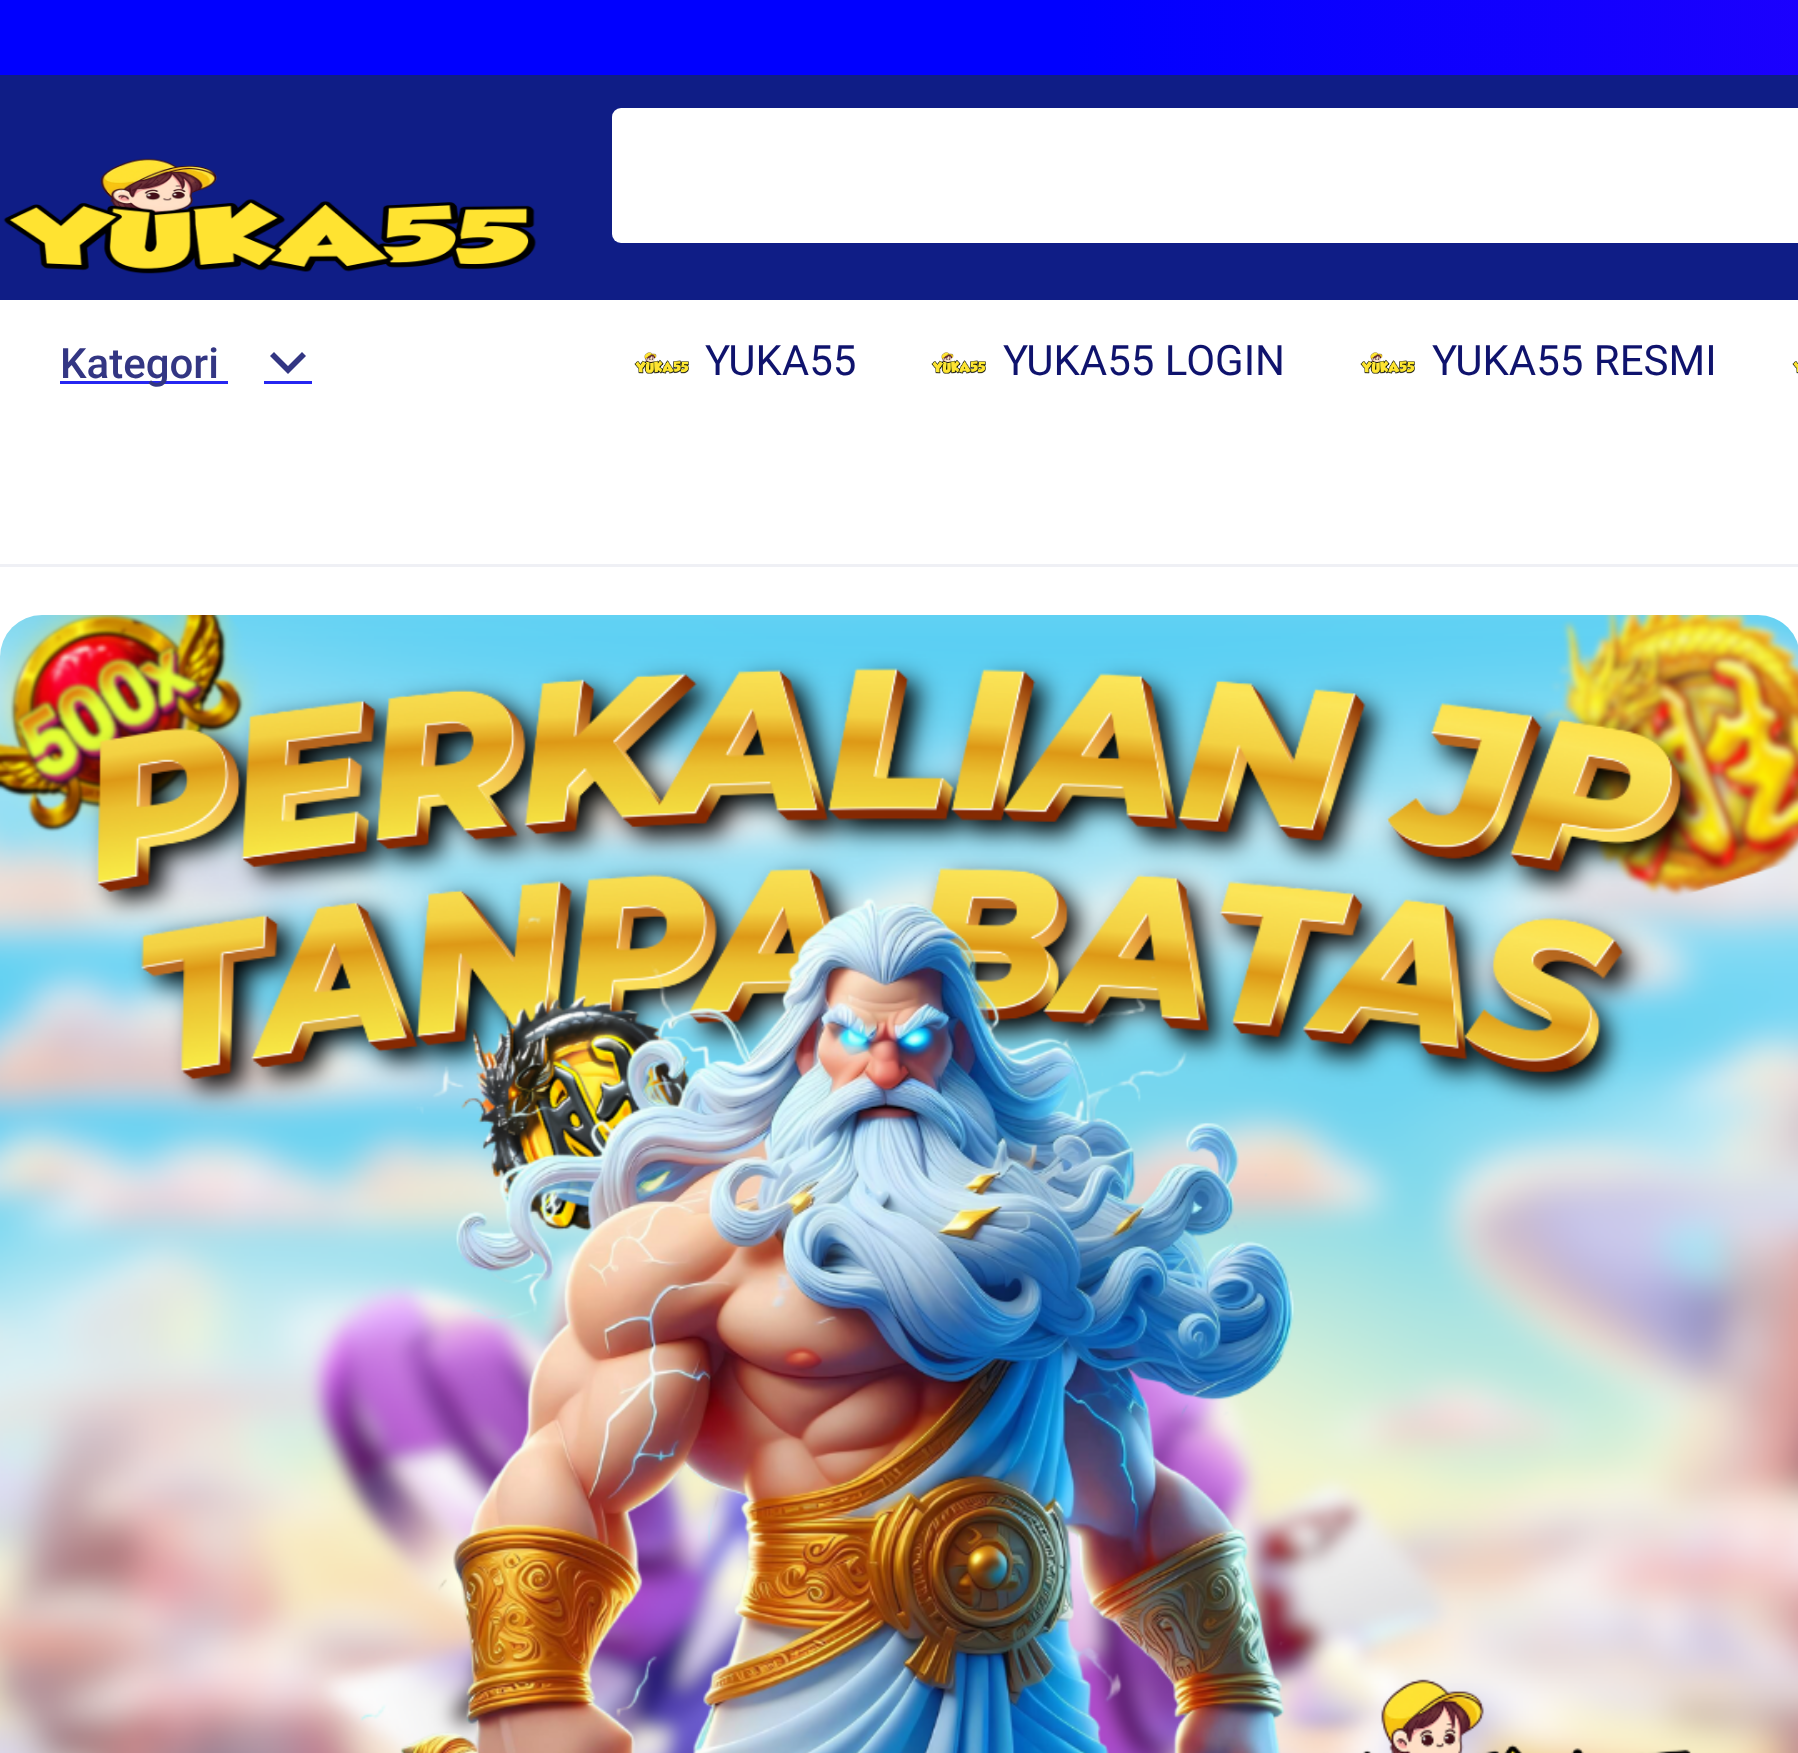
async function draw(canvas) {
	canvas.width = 1798;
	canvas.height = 1753;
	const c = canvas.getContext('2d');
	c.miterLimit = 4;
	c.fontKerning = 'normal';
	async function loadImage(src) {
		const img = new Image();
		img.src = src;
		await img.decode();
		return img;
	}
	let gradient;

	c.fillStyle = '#fff';
	c.fillRect(0, 0, 1798, 1753);
	gradient = c.createLinearGradient(-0.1, 41, 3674, 33);
	gradient.addColorStop(0.29, '#00f');
	gradient.addColorStop(1, '#6001fa');
	c.fillStyle = gradient;
	c.fillRect(0, 0, 1798, 75);
	c.fillStyle = '#0f1d86';
	c.fillRect(0, 75, 1798, 225);
	c.drawImage(await loadImage('img1.png'), 3, 158, 534, 116);
	c.fillStyle = '#fff';
	c.beginPath();
	c.roundRect(612, 108, 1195, 135, 9);
	c.fill();
	c.fillStyle = '#2626f1';
	c.fillRect(60, 381, 168, 3);
	c.font = '500 42px Roboto';
	c.fillStyle = '#333683';
	c.fillText('Kategori', 60, 378);
	c.fillStyle = '#2626f1';
	c.fillRect(264, 381, 48, 3);
	c.fillStyle = '#333683';
	c.beginPath();
	c.moveTo(302, 352);
	c.lineTo(306, 356);
	c.lineTo(288, 374);
	c.lineTo(270, 356);
	c.lineTo(274, 352);
	c.lineTo(288, 366);
	c.closePath();
	c.fill();
	c.drawImage(await loadImage('img2.png'), 634, 352, 55, 22);
	c.font = '42px Roboto';
	c.fillStyle = '#0f136d';
	c.fillText('YUKA55', 705, 375);
	c.drawImage(await loadImage('img3.png'), 931, 352, 55, 22);
	c.fillText('YUKA55 LOGIN', 1003, 375);
	c.drawImage(await loadImage('img3.png'), 1360, 352, 55, 22);
	c.fillText('YUKA55 RESMI', 1432, 375);
	c.drawImage(await loadImage('img4.png'), 1792, 361, 6, 13);
	c.fillStyle = '#eff0f5';
	c.fillRect(0, 564, 1798, 3);
	c.drawImage(await loadImage('img5.png'), 0, 615, 1798, 1138);
}

draw(document.querySelector('canvas'));
